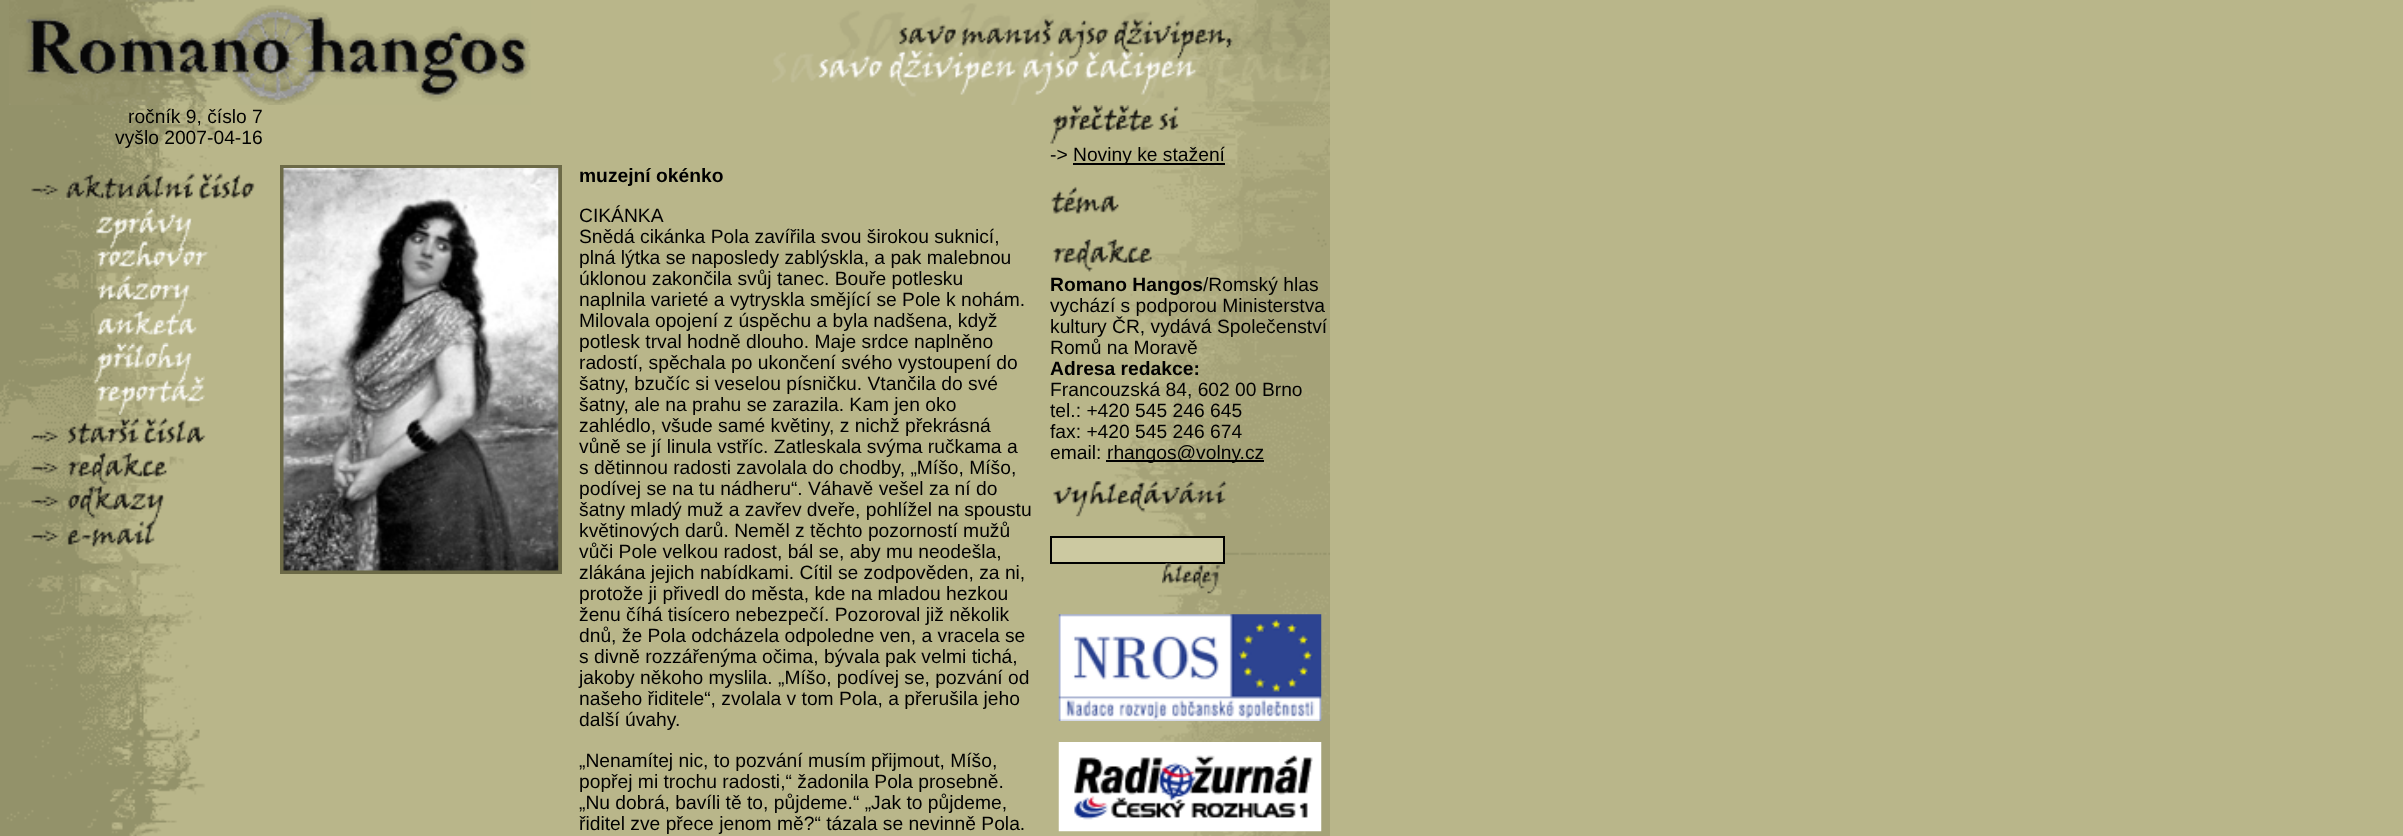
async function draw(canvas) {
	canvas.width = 2403;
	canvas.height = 836;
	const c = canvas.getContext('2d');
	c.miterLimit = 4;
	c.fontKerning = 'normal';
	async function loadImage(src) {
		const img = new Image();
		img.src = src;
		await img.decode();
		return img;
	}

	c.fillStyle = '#b9b68a';
	c.fillRect(0, 0, 2403, 836);
	c.drawImage(await loadImage('img1.png'), 0, 0, 1330, 836);
	c.drawImage(await loadImage('img2.png'), 9, 0, 522, 105);
	c.drawImage(await loadImage('img3.png'), 772, 0, 558, 105);
	c.font = '19.25px Liberation Sans';
	c.fillStyle = '#000';
	c.fillText('ročník 9, číslo 7', 128, 123);
	c.fillText('vyšlo 2007-04-16', 115, 144);
	c.drawImage(await loadImage('img4.png'), 31, 173, 224, 27);
	c.drawImage(await loadImage('img5.png'), 95, 207, 97, 33);
	c.drawImage(await loadImage('img6.png'), 97, 239, 112, 28);
	c.drawImage(await loadImage('img7.png'), 97, 274, 93, 36);
	c.drawImage(await loadImage('img8.png'), 97, 309, 100, 36);
	c.drawImage(await loadImage('img9.png'), 95, 344, 110, 36);
	c.drawImage(await loadImage('img10.png'), 94, 379, 111, 36);
	c.drawImage(await loadImage('img11.png'), 31, 417, 175, 28);
	c.drawImage(await loadImage('img12.png'), 31, 452, 136, 33);
	c.drawImage(await loadImage('img13.png'), 31, 486, 133, 34);
	c.drawImage(await loadImage('img14.png'), 31, 519, 126, 28);
	c.strokeStyle = '#6c6a47';
	c.lineWidth = 4;
	c.strokeRect(282, 167, 278, 405);
	c.drawImage(await loadImage('img15.png'), 283, 168, 276, 403);
	c.font = 'bold 19.25px Liberation Sans';
	c.fillText('muzejní okénko', 579, 182);
	c.font = '19.25px Liberation Sans';
	for (const [text, x, y] of [
		['CIKÁNKA', 579, 222],
		['Snědá cikánka Pola zavířila svou širokou suknicí,', 579, 243],
		['plná lýtka se naposledy zablýskla, a pak malebnou', 579, 264],
		['úklonou zakončila svůj tanec. Bouře potlesku', 579, 285],
		['naplnila varieté a vytryskla smějící se Pole k nohám.', 579, 306],
		['Milovala opojení z úspěchu a byla nadšena, když', 579, 327],
		['potlesk trval hodně dlouho. Maje srdce naplněno', 579, 348],
		['radostí, spěchala po ukončení svého vystoupení do', 579, 369],
		['šatny, bzučíc si veselou písničku. Vtančila do své', 579, 390],
		['šatny, ale na prahu se zarazila. Kam jen oko', 579, 411],
		['zahlédlo, všude samé květiny, z nichž překrásná', 579, 432],
		['vůně se jí linula vstříc. Zatleskala svýma ručkama a', 579, 453],
		['s dětinnou radosti zavolala do chodby, „Míšo, Míšo,', 579, 474],
		['podívej se na tu nádheru“. Váhavě vešel za ní do', 579, 495],
		['šatny mladý muž a zavřev dveře, pohlížel na spoustu', 579, 516],
		['květinových darů. Neměl z těchto pozorností mužů', 579, 537],
		['vůči Pole velkou radost, bál se, aby mu neodešla,', 579, 558],
		['zlákána jejich nabídkami. Cítil se zodpověden, za ni,', 579, 579],
		['protože ji přivedl do města, kde na mladou hezkou', 579, 600],
		['ženu číhá tisícero nebezpečí. Pozoroval již několik', 579, 621],
		['dnů, že Pola odcházela odpoledne ven, a vracela se', 579, 642],
		['s divně rozzářenýma očima, bývala pak velmi tichá,', 579, 663],
		['jakoby někoho myslila. „Míšo, podívej se, pozvání od', 579, 684],
		['našeho řiditele“, zvolala v tom Pola, a přerušila jeho', 579, 705],
		['další úvahy.', 579, 726],
		['„Nenamítej nic, to pozvání musím přijmout, Míšo,', 579, 767],
		['popřej mi trochu radosti,“ žadonila Pola prosebně.', 579, 788],
		['„Nu dobrá, bavíli tě to, půjdeme.“ „Jak to půjdeme,', 579, 809],
		['řiditel zve přece jenom mě?“ tázala se nevinně Pola.', 579, 830],
	]) {
		c.fillText(text, x, y);
	}
	c.drawImage(await loadImage('img16.png'), 1050, 105, 129, 39);
	c.fillText('->', 1050, 161);
	c.fillRect(1073, 163, 152, 2);
	c.fillText('Noviny ke stažení', 1073, 161);
	c.drawImage(await loadImage('img17.png'), 1051, 186, 68, 28);
	c.drawImage(await loadImage('img18.png'), 1053, 239, 99, 33);
	c.font = 'bold 19.25px Liberation Sans';
	c.fillText('Romano Hangos', 1050, 291);
	c.font = '19.25px Liberation Sans';
	for (const [text, x, y] of [
		['/Romský hlas', 1203, 291],
		['vychází s podporou Ministerstva', 1050, 312],
		['kultury ČR, vydává Společenství', 1050, 333],
		['Romů na Moravě', 1050, 354],
	]) {
		c.fillText(text, x, y);
	}
	c.font = 'bold 19.25px Liberation Sans';
	c.fillText('Adresa redakce:', 1050, 375);
	c.font = '19.25px Liberation Sans';
	for (const [text, x, y] of [
		['Francouzská 84, 602 00 Brno', 1050, 396],
		['tel.: +420 545 246 645', 1050, 417],
		['fax: +420 545 246 674', 1050, 438],
		['email:', 1050, 459],
	]) {
		c.fillText(text, x, y);
	}
	c.fillRect(1106, 460, 158, 2);
	c.fillText('rhangos@volny.cz', 1107, 459);
	c.drawImage(await loadImage('img19.png'), 1053, 481, 174, 36);
	c.fillStyle = '#ccc9a1';
	c.beginPath();
	c.rect(1051, 537, 173, 26);
	c.fill();
	c.strokeStyle = '#000';
	c.lineWidth = 2;
	c.stroke();
	c.drawImage(await loadImage('img20.png'), 1162, 563, 58, 31);
	c.drawImage(await loadImage('img21.png'), 1058, 614, 264, 107);
	c.drawImage(await loadImage('img22.png'), 1058, 742, 264, 90);
}

draw(document.querySelector('canvas'));
